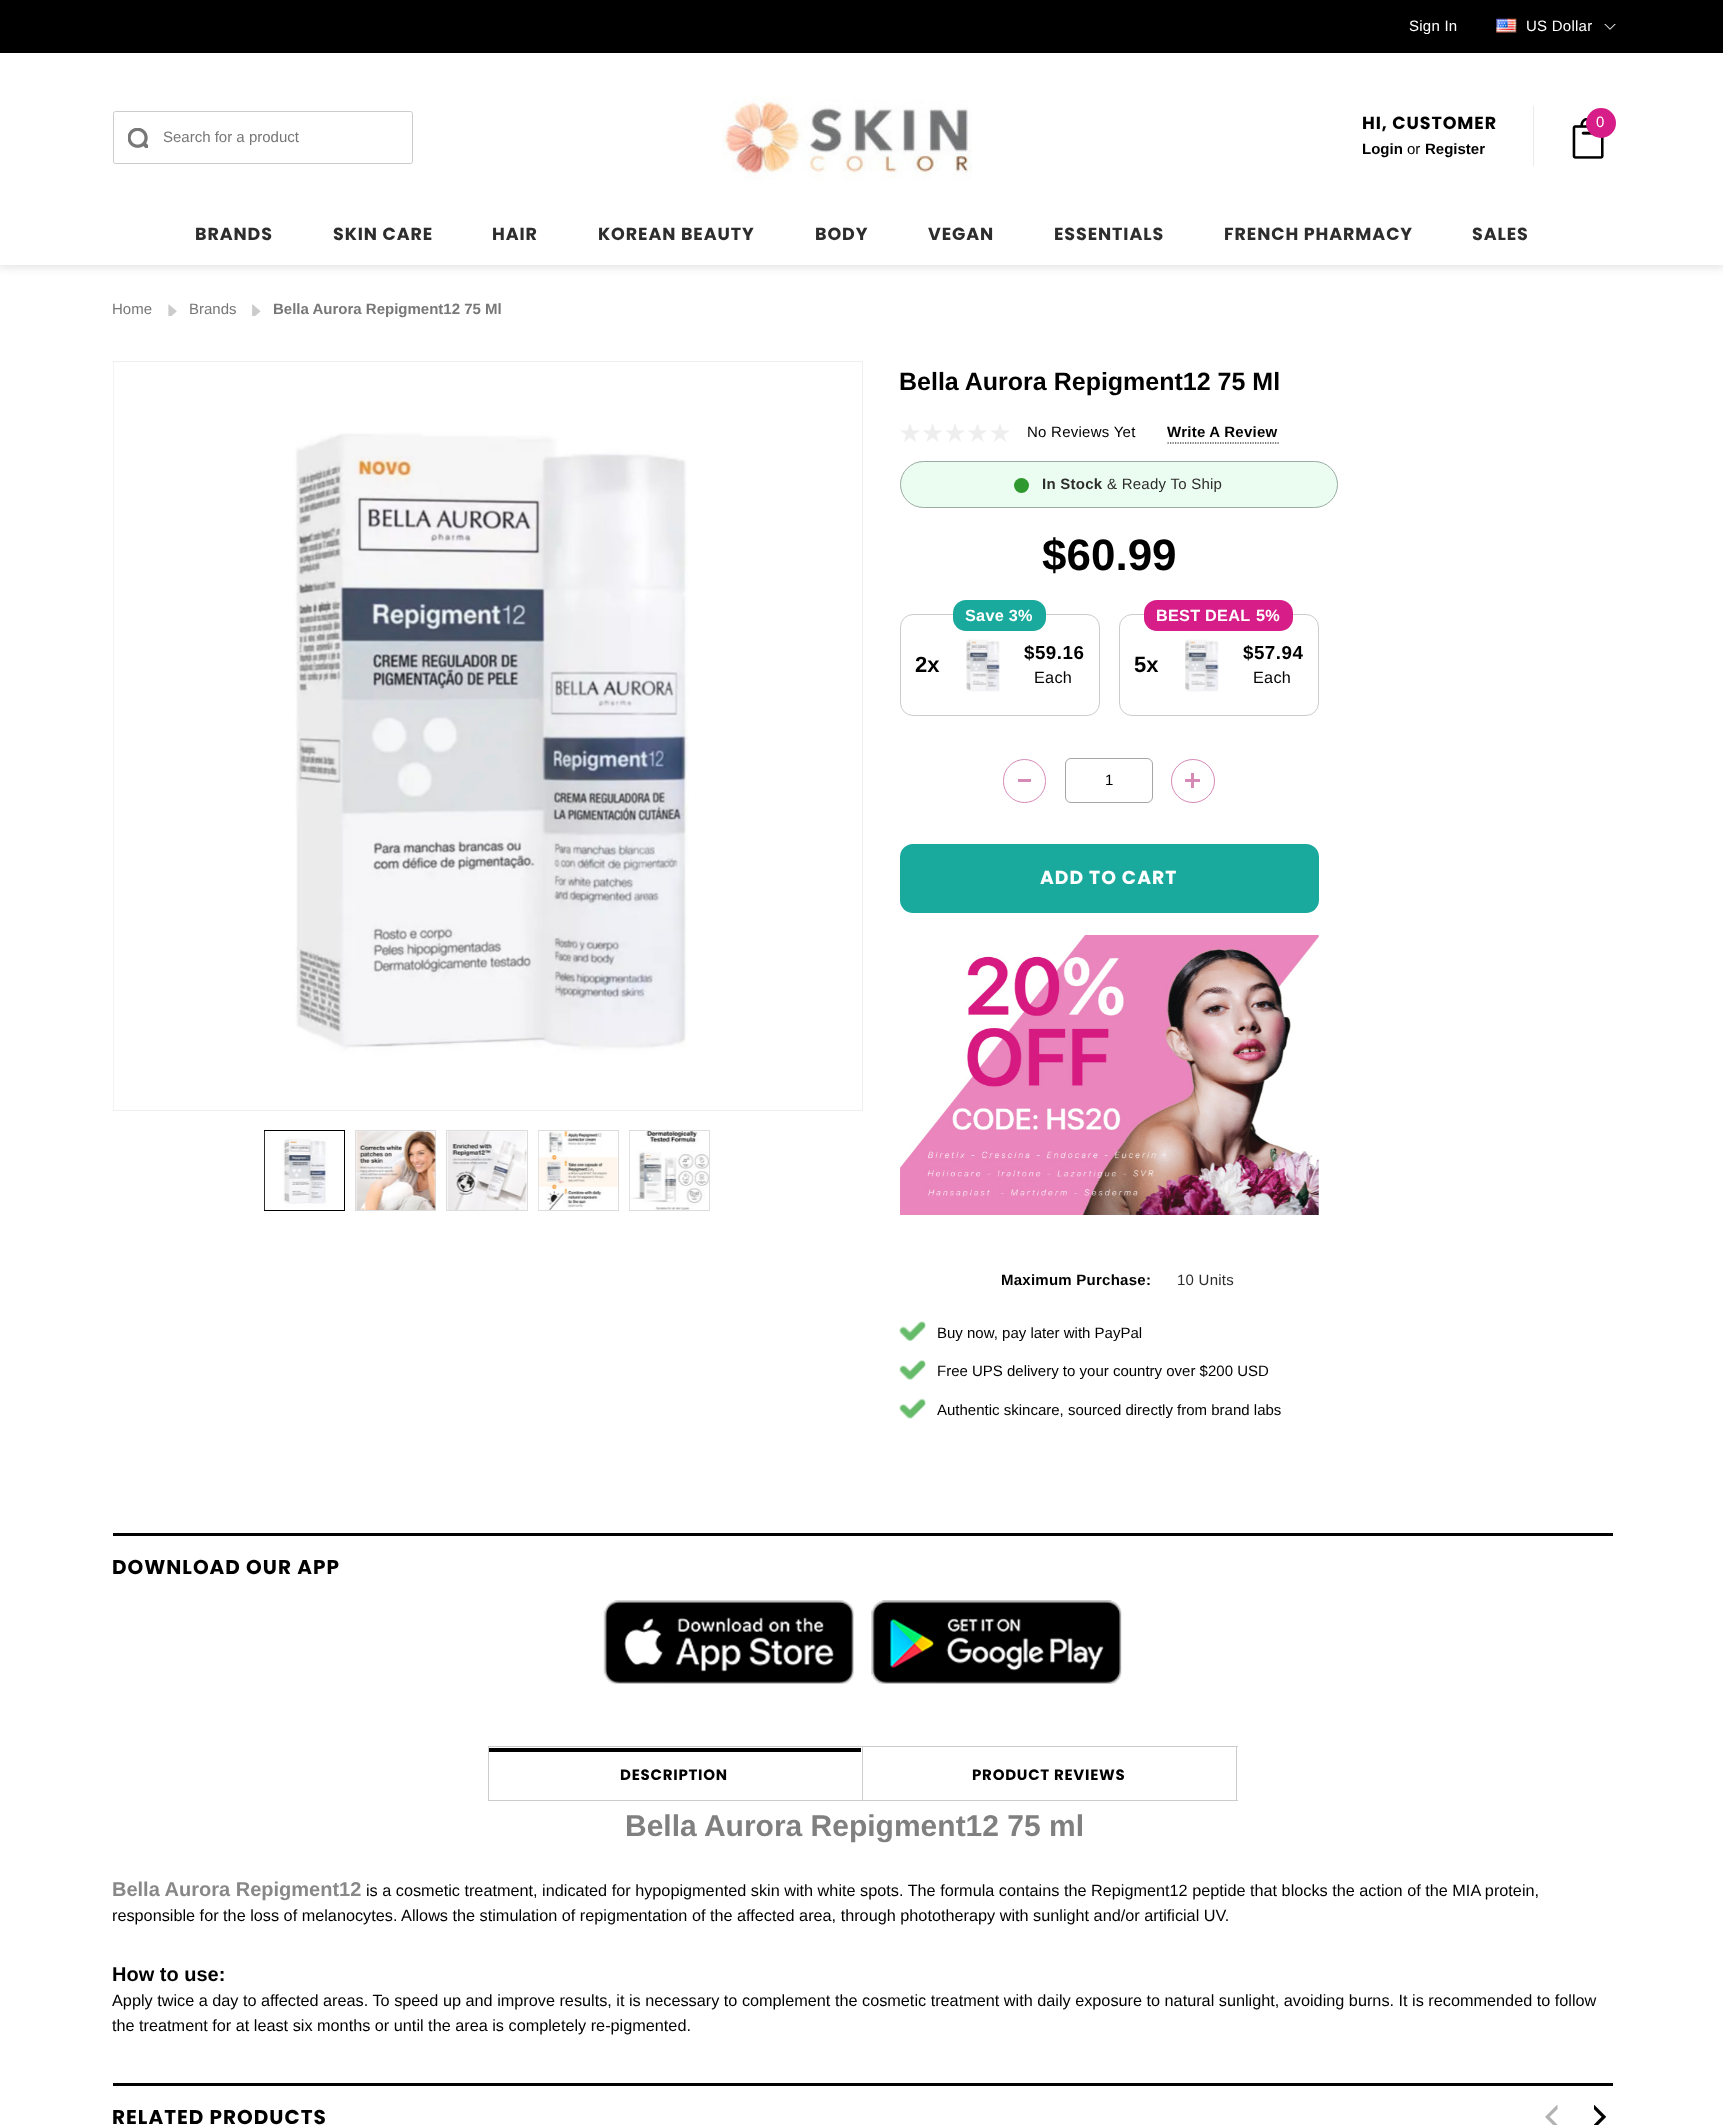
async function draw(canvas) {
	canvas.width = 1723;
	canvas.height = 2125;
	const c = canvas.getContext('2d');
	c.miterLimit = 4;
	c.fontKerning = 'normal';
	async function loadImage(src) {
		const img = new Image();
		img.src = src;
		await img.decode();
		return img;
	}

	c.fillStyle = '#fff';
	c.fillRect(0, 0, 1723, 2125);
	c.save();
	c.beginPath();
	c.rect(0, 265, 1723, 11);
	c.clip();
	c.fillStyle = '#e5e5e5';
	c.filter = 'blur(4px)';
	c.beginPath();
	c.rect(-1, 0, 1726, 268);
	c.fill();
	c.filter = 'none';
	c.restore();
	c.fillStyle = '#000';
	c.fillRect(0, 0, 1723, 53);
	c.letterSpacing = '0.25px';
	c.font = '15px Arimo';
	c.fillStyle = '#fff';
	c.fillText('Sign In', 1409, 31);
	c.drawImage(await loadImage('img1.png'), 1496, 18, 21, 15);
	c.fillText('US Dollar', 1526, 31);
	c.drawImage(await loadImage('img2.png'), 1604, 24, 12, 6);
	c.beginPath();
	c.roundRect(113.5, 111.5, 299, 52, 2);
	c.strokeStyle = '#ccc';
	c.stroke();
	c.drawImage(await loadImage('img3.png'), 128, 128, 20, 20);
	c.letterSpacing = '0px';
	c.fillStyle = '#777';
	c.fillText('Search for a product', 163, 142);
	c.drawImage(await loadImage('img4.png'), 722, 95, 250, 85);
	c.fillStyle = '#ebebeb';
	c.fillRect(1533, 106, 1, 60);
	c.letterSpacing = '0.9px';
	c.font = 'bold 17.5px Poppins';
	c.fillStyle = '#000';
	c.fillText('HI, CUSTOMER', 1362, 129);
	c.letterSpacing = '0px';
	c.font = 'bold 15px Arimo';
	c.fillText('Login', 1362, 154);
	c.font = '15px Arimo';
	c.fillText('or', 1407, 154);
	c.font = 'bold 15px Arimo';
	c.fillText('Register', 1425, 154);
	c.drawImage(await loadImage('img5.png'), 1572, 118, 32, 41);
	c.fillStyle = '#d71e88';
	c.beginPath();
	c.arc(1601, 123, 15, 0, 2 * Math.PI);
	c.fill();
	c.font = '15px Arimo';
	c.fillStyle = '#fff';
	c.fillText('0', 1596, 127);
	c.letterSpacing = '0.9px';
	c.font = 'bold 17.5px Poppins';
	c.fillStyle = '#2d2d2d';
	for (const [text, x, y] of [
		['BRANDS', 195, 240],
		['SKIN CARE', 333, 240],
		['HAIR', 492, 240],
		['KOREAN BEAUTY', 598, 240],
		['BODY', 815, 240],
		['VEGAN', 928, 240],
		['ESSENTIALS', 1054, 240],
		['FRENCH PHARMACY', 1224, 240],
		['SALES', 1472, 240],
	]) {
		c.fillText(text, x, y);
	}
	c.letterSpacing = '0px';
	c.font = '15px Arimo';
	c.fillStyle = '#777';
	c.fillText('Home', 112, 314);
	c.drawImage(await loadImage('img6.png'), 168, 304, 9, 12);
	c.fillText('Brands', 189, 314);
	c.drawImage(await loadImage('img7.png'), 252, 304, 9, 12);
	c.font = 'bold 15px Arimo';
	c.fillText('Bella Aurora Repigment12 75 Ml', 273, 314);
	c.strokeStyle = '#eee';
	c.strokeRect(113.5, 361.5, 749, 749);
	c.drawImage(await loadImage('img8.png'), 113, 363, 576, 747);
	c.strokeStyle = '#000';
	c.strokeRect(264.5, 1130.5, 80, 80);
	c.drawImage(await loadImage('img9.png'), 264, 1131, 64, 79);
	c.strokeStyle = '#ddd';
	c.strokeRect(355.5, 1130.5, 80, 80);
	c.drawImage(await loadImage('img10.png'), 356, 1131, 80, 79);
	c.strokeRect(446.5, 1130.5, 81, 80);
	c.drawImage(await loadImage('img11.png'), 447, 1131, 80, 79);
	c.strokeRect(538.5, 1130.5, 80, 80);
	c.drawImage(await loadImage('img12.png'), 538, 1131, 80, 79);
	c.strokeRect(629.5, 1130.5, 80, 80);
	c.drawImage(await loadImage('img13.png'), 629, 1131, 80, 79);
	c.font = 'bold 25px Arimo';
	c.fillStyle = '#000';
	c.fillText('Bella Aurora Repigment12 75 Ml', 899, 390);
	c.drawImage(await loadImage('img14.png'), 900, 424, 20, 18);
	c.drawImage(await loadImage('img15.png'), 923, 423, 19, 19);
	c.drawImage(await loadImage('img14.png'), 945, 424, 20, 18);
	c.drawImage(await loadImage('img15.png'), 968, 423, 19, 19);
	c.drawImage(await loadImage('img14.png'), 990, 424, 20, 18);
	c.letterSpacing = '0.25px';
	c.font = '15px Arimo';
	c.fillText('No Reviews Yet', 1027, 437);
	c.beginPath();
	c.moveTo(1167.5, 443);
	c.lineTo(1279, 443);
	c.strokeStyle = '#000';
	c.lineWidth = 1.2;
	c.setLineDash([1.25, 1.25]);
	c.stroke();
	c.font = 'bold 15px Arimo';
	c.fillText('Write A Review', 1167, 437);
	c.fillStyle = '#ebfdf1';
	c.beginPath();
	c.roundRect(900.5, 461.5, 437, 46, 23);
	c.fill();
	c.strokeStyle = '#9aaba3';
	c.lineWidth = 1;
	c.setLineDash([]);
	c.stroke();
	c.fillStyle = '#2f9930';
	c.beginPath();
	c.arc(1021.5, 485.5, 7.5, 0, 2 * Math.PI);
	c.fill();
	c.fillStyle = '#2d2d2d';
	c.fillText('In Stock', 1042, 489);
	c.font = '15px Arimo';
	c.fillText('& Ready To Ship', 1107, 489);
	c.letterSpacing = '0px';
	c.font = 'bold 44px Arimo';
	c.fillStyle = '#000';
	c.fillText('$60.99', 1042, 570);
	c.beginPath();
	c.roundRect(900.5, 614.5, 199, 101, 12.5);
	c.strokeStyle = '#ccc';
	c.stroke();
	c.fillStyle = '#19aa9d';
	c.beginPath();
	c.roundRect(953, 600, 93, 31, 13);
	c.fill();
	c.letterSpacing = '0.25px';
	c.font = 'bold 16.25px Arimo';
	c.fillStyle = '#fff';
	c.fillText('Save 3%', 965, 621);
	c.letterSpacing = '0px';
	c.font = 'bold 22px Arimo';
	c.fillStyle = '#000';
	c.fillText('2x', 915, 672);
	c.drawImage(await loadImage('img16.png'), 966, 639, 34, 53);
	c.letterSpacing = '0.5px';
	c.font = 'bold 18.75px Arimo';
	c.fillText('$59.16', 1024, 659);
	c.letterSpacing = '0.25px';
	c.font = '16.25px Arimo';
	c.fillText('Each', 1034, 683);
	c.beginPath();
	c.roundRect(1119.5, 614.5, 199, 101, 12.5);
	c.stroke();
	c.fillStyle = '#d71e88';
	c.beginPath();
	c.roundRect(1144, 600, 149, 31, 13);
	c.fill();
	c.font = 'bold 16.25px Arimo';
	c.fillStyle = '#fff';
	c.fillText('BEST DEAL', 1156, 621);
	c.fillText('5%', 1256, 621);
	c.letterSpacing = '0px';
	c.font = 'bold 22px Arimo';
	c.fillStyle = '#000';
	c.fillText('5x', 1134, 672);
	c.drawImage(await loadImage('img17.png'), 1185, 639, 34, 53);
	c.letterSpacing = '0.5px';
	c.font = 'bold 18.75px Arimo';
	c.fillText('$57.94', 1243, 659);
	c.letterSpacing = '0.25px';
	c.font = '16.25px Arimo';
	c.fillText('Each', 1253, 683);
	c.beginPath();
	c.roundRect(1003.5, 759.5, 42, 43, 21);
	c.strokeStyle = '#d689b5';
	c.stroke();
	c.fillStyle = '#d689b5';
	c.fillRect(1018, 779, 13, 3);
	c.beginPath();
	c.roundRect(1065.5, 758.5, 87, 44, 5.5);
	c.strokeStyle = '#a5a5a5';
	c.stroke();
	c.letterSpacing = '0px';
	c.font = '15px Arimo';
	c.fillStyle = '#000';
	c.fillText('1', 1105, 785);
	c.beginPath();
	c.arc(1193, 781, 21.5, 0, 2 * Math.PI);
	c.strokeStyle = '#d689b5';
	c.stroke();
	c.fillStyle = '#d689b5';
	c.fillRect(1185, 779, 15, 3);
	c.fillRect(1191, 773, 3, 15);
	c.fillStyle = '#19aa9d';
	c.beginPath();
	c.roundRect(900, 844, 419, 69, 13);
	c.fill();
	c.letterSpacing = '1px';
	c.font = 'bold 18.75px Poppins';
	c.fillStyle = '#fff';
	c.fillText('ADD TO CART', 1040, 884);
	c.drawImage(await loadImage('img18.png'), 900, 935, 419, 280);
	c.letterSpacing = '0.25px';
	c.font = 'bold 15px Arimo';
	c.fillStyle = '#000';
	c.fillText('Maximum Purchase:', 1001, 1285);
	c.font = '15px Arimo';
	c.fillStyle = '#2d2d2d';
	c.fillText('10 Units', 1177, 1285);
	c.drawImage(await loadImage('img19.png'), 899, 1321, 27, 20);
	c.letterSpacing = '0px';
	c.fillStyle = '#000';
	c.fillText('Buy now, pay later with PayPal', 937, 1338);
	c.drawImage(await loadImage('img20.png'), 899, 1360, 27, 20);
	c.fillText('Free UPS delivery to your country over $200 USD', 937, 1376);
	c.drawImage(await loadImage('img21.png'), 899, 1398, 27, 21);
	c.fillText('Authentic skincare, sourced directly from brand labs', 937, 1415);
	c.fillRect(113, 1533, 1500, 3);
	c.letterSpacing = '1px';
	c.font = 'bold 20px Poppins';
	c.fillText('DOWNLOAD OUR APP', 112, 1574);
	c.drawImage(await loadImage('img22.png'), 603, 1600, 251, 84);
	c.drawImage(await loadImage('img23.png'), 871, 1600, 251, 84);
	c.strokeStyle = '#ccc';
	c.strokeRect(488.5, 1746.5, 374, 54);
	c.fillRect(489, 1748, 372, 4);
	c.letterSpacing = '0.75px';
	c.font = 'bold 15px Poppins';
	c.fillText('DESCRIPTION', 620, 1780);
	for (const [x, y, w, h, color] of [
		[863, 1746, 375, 1, '#ccc'],
		[1236, 1746, 1, 55, '#ccc'],
		[863, 1800, 375, 1, '#ccc'],
	]) {
		c.fillStyle = color;
		c.fillRect(x, y, w, h);
	}
	c.fillStyle = '#000';
	c.fillText('PRODUCT REVIEWS', 972, 1780);
	c.letterSpacing = '0px';
	c.font = 'bold 30px Arimo';
	c.fillStyle = '#808080';
	c.fillText('Bella Aurora Repigment12 75 ml', 625, 1836);
	c.font = 'bold 20px Arimo';
	c.fillStyle = '#888';
	c.fillText('Bella Aurora Repigment12', 112, 1896);
	c.font = '16.25px Arimo';
	c.fillStyle = '#000';
	c.fillText('is a cosmetic treatment, indicated for hypopigmented skin with white spots. The formula contains the Repigment12 peptide that blocks the action of the MIA protein,', 366, 1896);
	c.fillText('responsible for the loss of melanocytes. Allows the stimulation of repigmentation of the affected area, through phototherapy with sunlight and/or artificial UV.', 112, 1921);
	c.font = 'bold 20px Arimo';
	c.fillText('How to use:', 112, 1981);
	c.font = '16.25px Arimo';
	c.fillText('Apply twice a day to affected areas. To speed up and improve results, it is necessary to complement the cosmetic treatment with daily exposure to natural sunlight, avoiding burns. It is recommended to follow', 112, 2006);
	c.fillText('the treatment for at least six months or until the area is completely re-pigmented.', 112, 2031);
	c.fillRect(113, 2083, 1500, 3);
	c.letterSpacing = '1px';
	c.font = 'bold 20px Poppins';
	c.fillText('RELATED PRODUCTS', 112, 2124);
	c.drawImage(await loadImage('img24.png'), 1545, 2105, 13, 20);
	c.drawImage(await loadImage('img25.png'), 1594, 2105, 12, 20);
}

draw(document.querySelector('canvas'));
